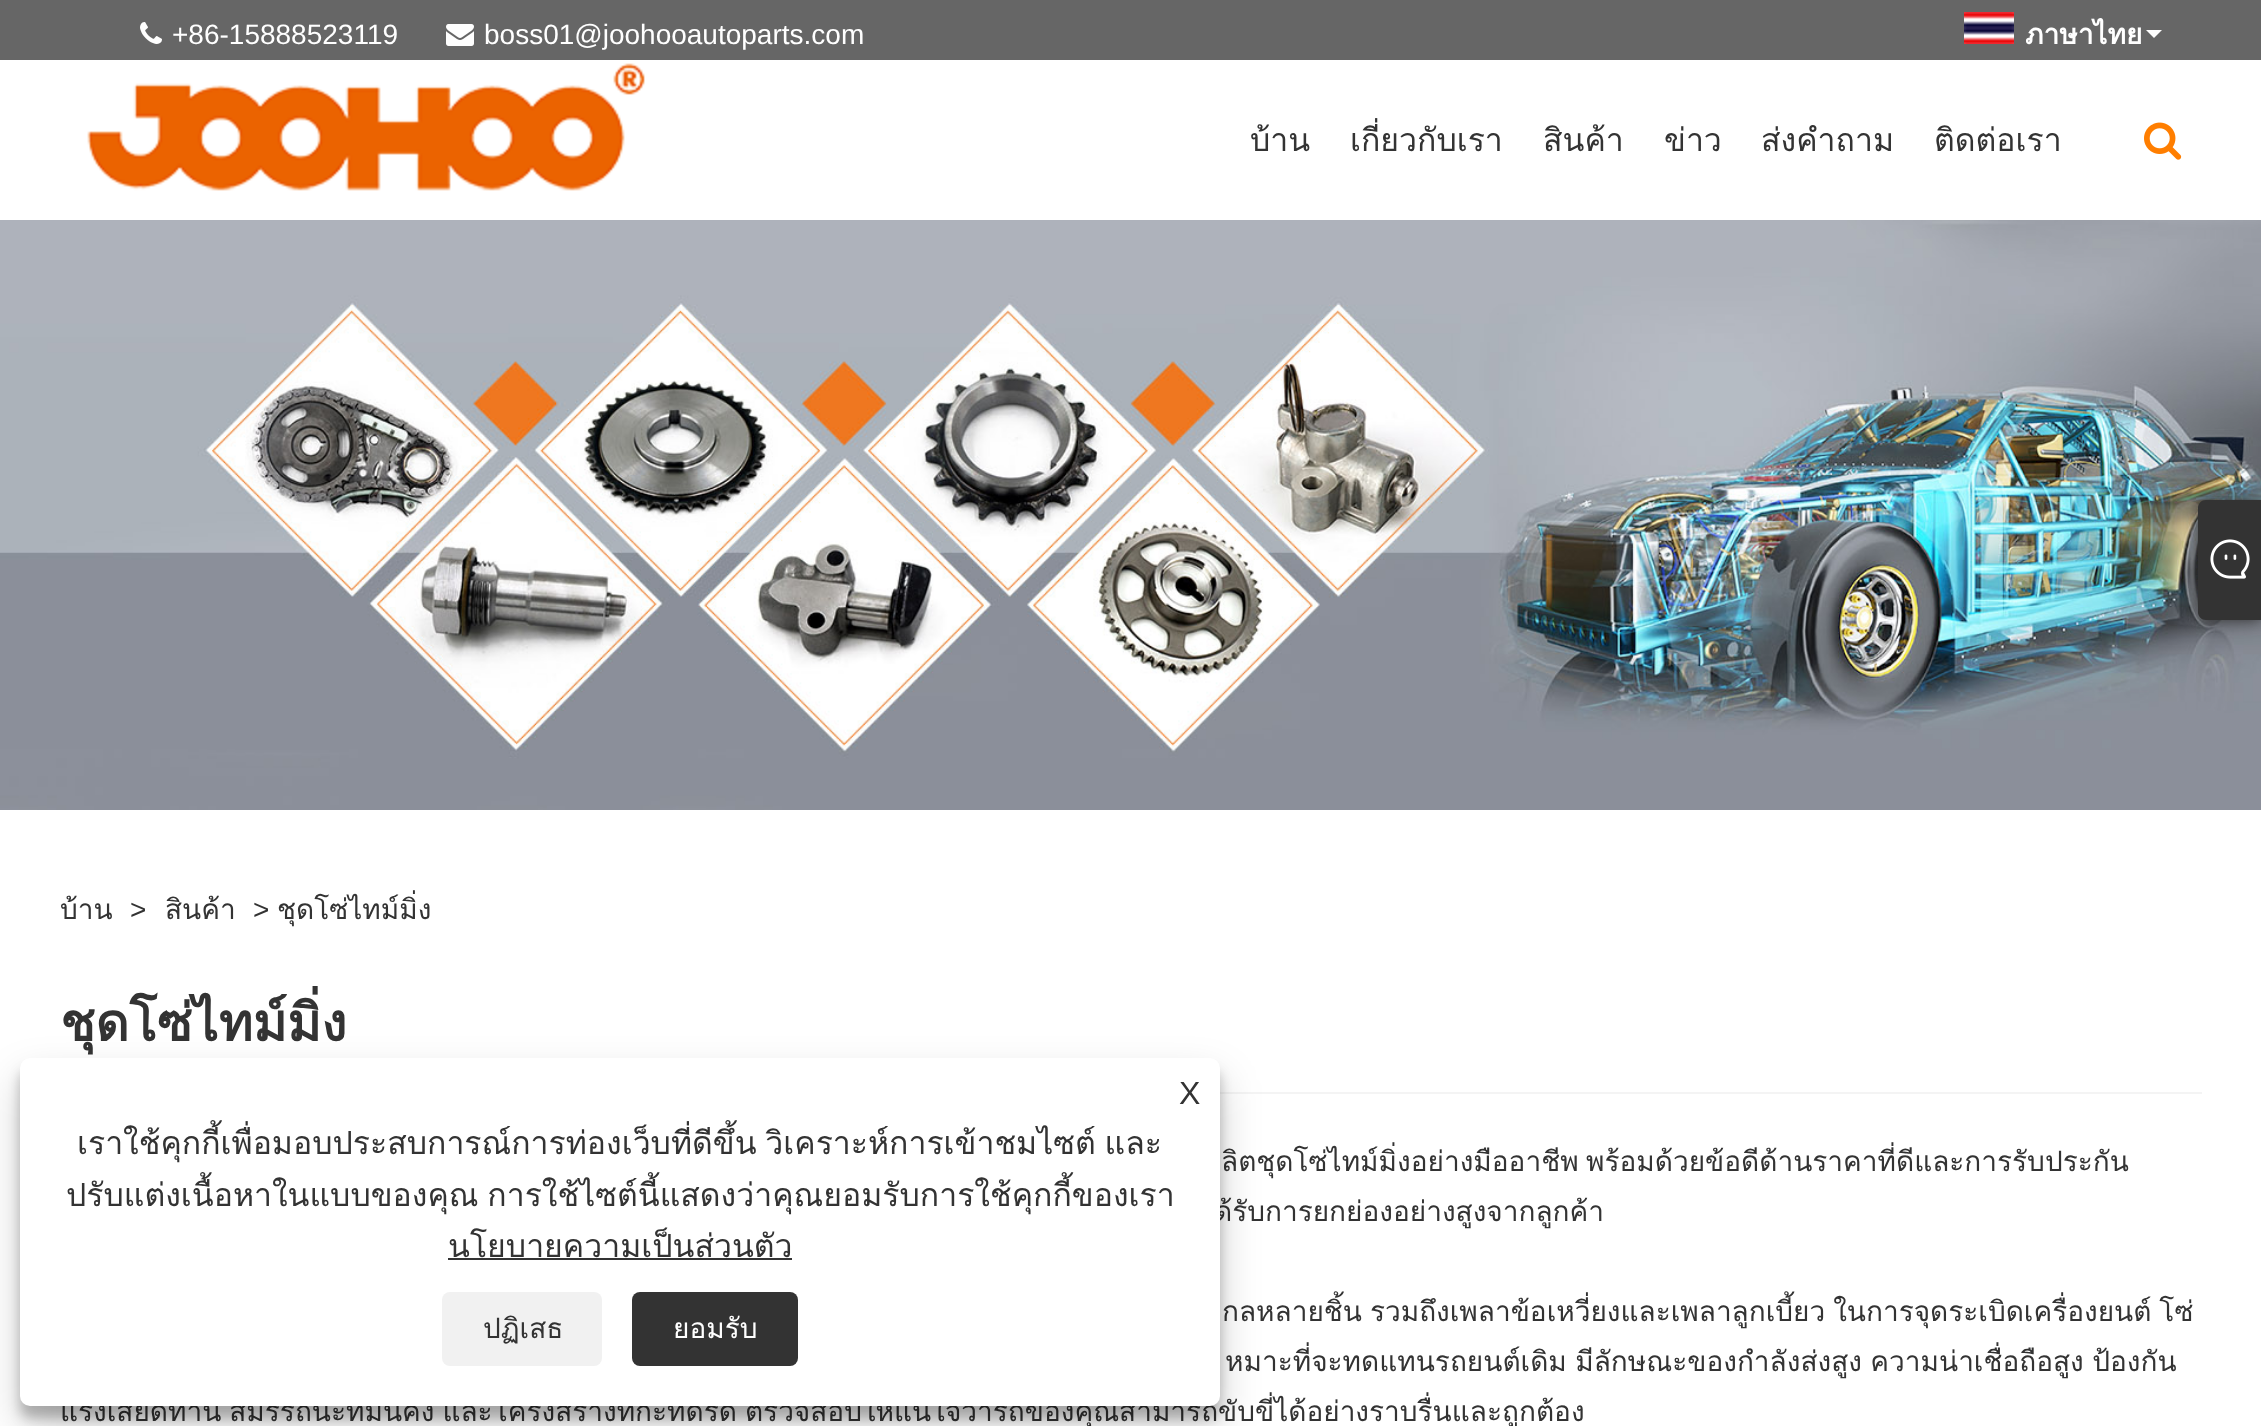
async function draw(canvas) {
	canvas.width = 2261;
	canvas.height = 1426;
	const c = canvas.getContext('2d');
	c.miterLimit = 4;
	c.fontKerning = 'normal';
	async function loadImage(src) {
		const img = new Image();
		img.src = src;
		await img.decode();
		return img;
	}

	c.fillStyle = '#fff';
	c.fillRect(0, 0, 2261, 1426);
	c.fillStyle = '#666';
	c.fillRect(0, 0, 2261, 60);
	c.drawImage(await loadImage('img1.png'), 140, 22, 22, 22);
	c.font = '28px Liberation Sans';
	c.fillStyle = '#fff';
	c.fillText('+86-15888523119', 172, 44);
	c.drawImage(await loadImage('img2.png'), 446, 24, 28, 22);
	c.fillText('boss01@joohooautoparts.com', 484, 44);
	c.drawImage(await loadImage('img3.png'), 1964, 12, 50, 32);
	c.font = 'bold 28px Loma';
	c.fillText('ภาษาไทย', 2025, 44);
	c.beginPath();
	c.moveTo(2146, 30);
	c.lineTo(2162, 30);
	c.lineTo(2154, 38);
	c.closePath();
	c.fill();
	c.drawImage(await loadImage('img4.png'), 87, 63, 558, 128);
	c.font = '32px Loma';
	c.fillStyle = '#333';
	for (const [text, x, y] of [
		['บ้าน', 1250, 151],
		['เกี่ยวกับเรา', 1350, 151],
		['สินค้า', 1543, 151],
		['ข่าว', 1664, 151],
		['ส่งคำถาม', 1761, 151],
		['ติดต่อเรา', 1934, 151],
	]) {
		c.fillText(text, x, y);
	}
	c.drawImage(await loadImage('img5.png'), 2144, 122, 38, 38);
	c.drawImage(await loadImage('img6.png'), 0, 220, 2261, 590);
	c.filter = 'blur(8px)';
	c.beginPath();
	c.roundRect(2198, 500, 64, 120, 8);
	c.fill();
	c.filter = 'none';
	c.beginPath();
	c.moveTo(2206, 500);
	c.lineTo(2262, 500);
	c.lineTo(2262, 620);
	c.lineTo(2206, 620);
	c.bezierCurveTo(2201.5, 620, 2198, 616.5, 2198, 612);
	c.lineTo(2198, 508);
	c.bezierCurveTo(2198, 503.5, 2201.5, 500, 2206, 500);
	c.closePath();
	c.fill();
	c.drawImage(await loadImage('img7.png'), 2210, 539, 40, 40);
	c.font = '28px Loma';
	c.fillText('บ้าน', 60, 919);
	c.font = '28px Liberation Sans';
	c.fillText('>', 130, 919);
	c.font = '28px Loma';
	c.fillText('สินค้า', 165, 919);
	c.font = '28px Liberation Sans';
	c.fillText('>', 253, 919);
	c.font = '28px Loma';
	c.fillText('ชุดโซ่ไทม์มิ่ง', 277, 919);
	c.fillStyle = '#f4f4f4';
	c.fillRect(1220, 1092, 982, 2);
	c.font = 'bold 52px Loma';
	c.fillStyle = '#333';
	c.fillText('ชุดโซ่ไทม์มิ่ง', 60, 1041);
	c.font = '28px Loma';
	c.fillText('ลิตชุดโซ่ไทม์มิ่งอย่างมืออาชีพ', 1221, 1171);
	c.fillText('พร้อมด้วยข้อดีด้านราคาที่ดีและการรับประกัน', 1586, 1171);
	c.wordSpacing = '-1.5px';
	c.fillText('ด้รับการยกย่องอย่างสูงจากลูกค้า', 1214, 1221);
	c.fillText('กลหลายชิ้น รวมถึงเพลาข้อเหวี่ยงและเพลาลูกเบี้ยว ในการจุดระเบิดเครื่องยนต์ โซ่', 1222, 1321);
	c.wordSpacing = '-1px';
	c.fillText('หมาะที่จะทดแทนรถยนต์เดิม มีลักษณะของกำลังส่งสูง ความน่าเชื่อถือสูง ป้องกัน', 1225, 1371);
	c.wordSpacing = '-1.5px';
	c.fillText('แรงเสียดทาน สมรรถนะที่มั่นคง และโครงสร้างที่กะทัดรัด ตรวจสอบให้แน่ใจว่ารถของคุณสามารถขับขี่ได้อย่างราบรื่นและถูกต้อง', 60, 1421);
	c.fillStyle = '#0000003b';
	c.filter = 'blur(6px)';
	c.beginPath();
	c.roundRect(20, 1070, 1200, 348, 10);
	c.fill();
	c.filter = 'none';
	c.fillStyle = '#00000030';
	c.filter = 'blur(20px)';
	c.beginPath();
	c.roundRect(20, 1078, 1200, 348, 10);
	c.fill();
	c.filter = 'none';
	c.fillStyle = '#fff';
	c.beginPath();
	c.roundRect(20, 1058, 1200, 348, 10);
	c.fill();
	c.wordSpacing = '0px';
	c.font = '32px Liberation Sans';
	c.fillStyle = '#333';
	c.fillText('X', 1179, 1104);
	c.wordSpacing = '-2px';
	c.font = '32px Loma';
	c.fillText('เราใช้คุกกี้เพื่อมอบประสบการณ์การท่องเว็บที่ดีขึ้น วิเคราะห์การเข้าชมไซต์ และ', 77, 1154);
	c.fillText('ปรับแต่งเนื้อหาในแบบของคุณ การใช้ไซต์นี้แสดงว่าคุณยอมรับการใช้คุกกี้ของเรา', 66, 1206);
	c.wordSpacing = '0px';
	c.fillText('นโยบายความเป็นส่วนตัว', 448, 1257);
	c.fillRect(448, 1258, 344, 2);
	c.fillStyle = '#f1f1f1';
	c.beginPath();
	c.roundRect(442, 1292, 160, 74, 8);
	c.fill();
	c.font = '28px Loma';
	c.fillStyle = '#333';
	c.fillText('ปฏิเสธ', 483, 1338);
	c.beginPath();
	c.roundRect(632, 1292, 166, 74, 8);
	c.fill();
	c.fillStyle = '#fff';
	c.fillText('ยอมรับ', 673, 1338);
}

draw(document.querySelector('canvas'));
